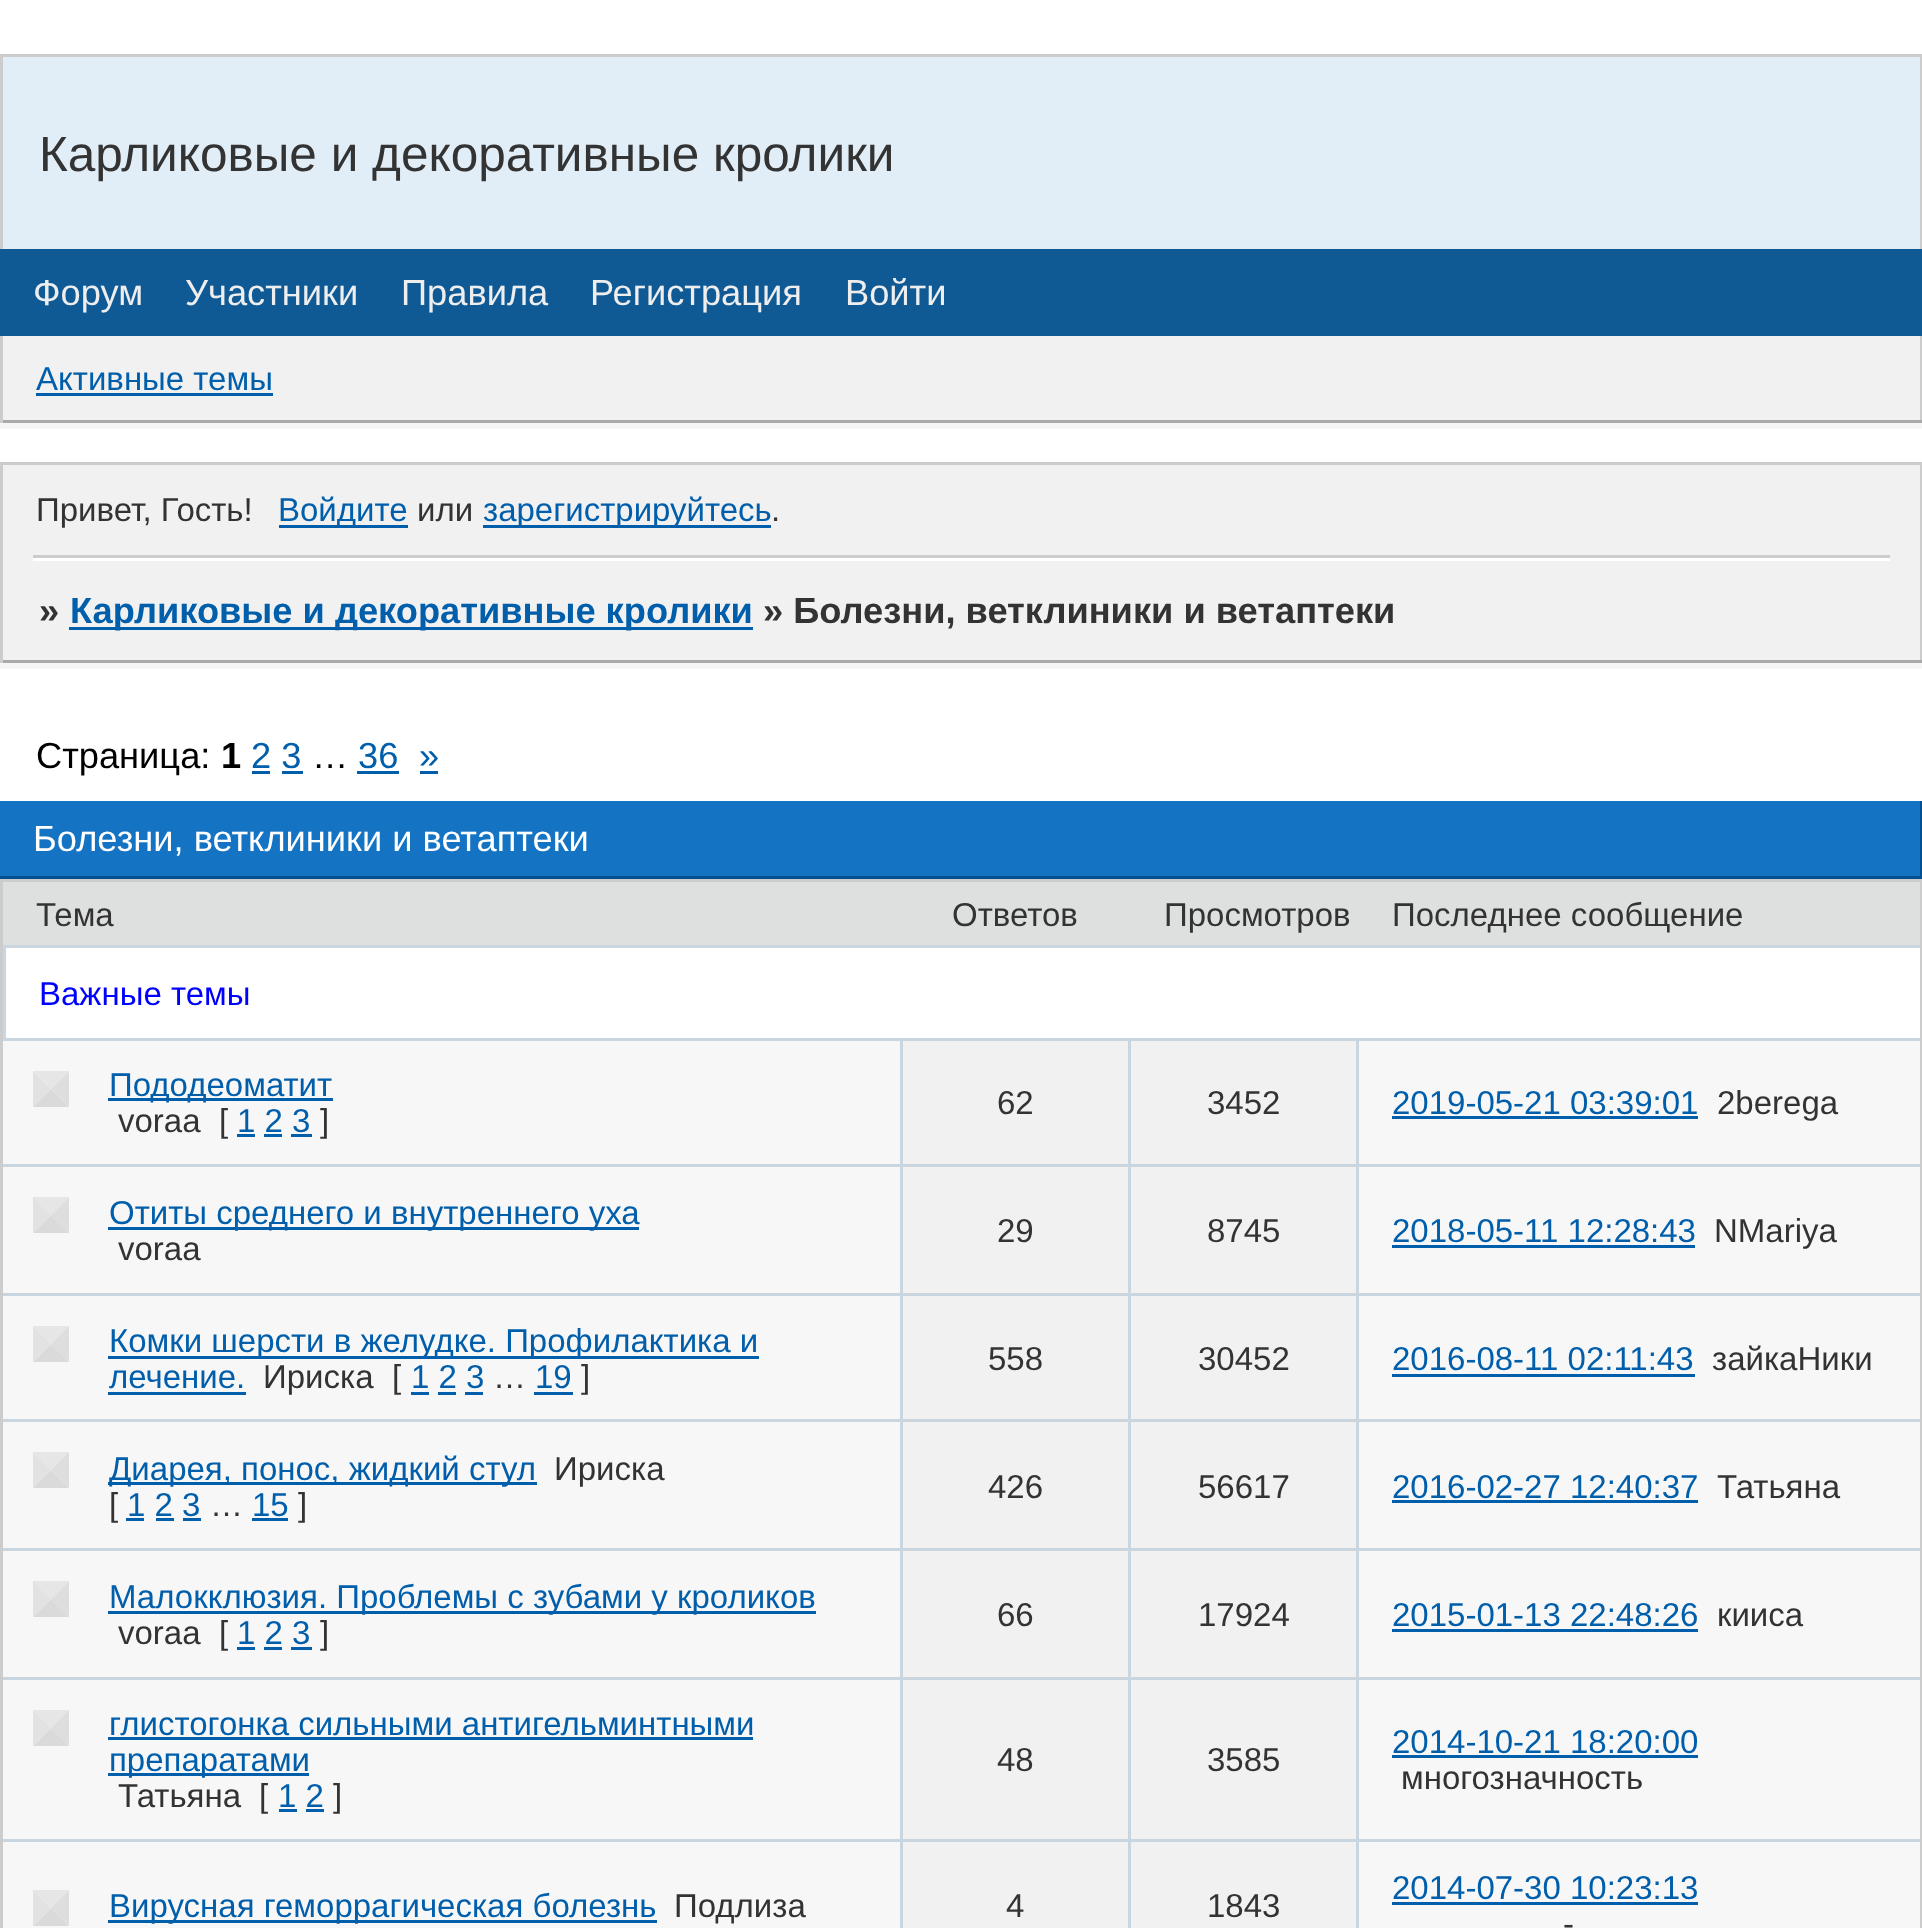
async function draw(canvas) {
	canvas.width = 1922;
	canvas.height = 1928;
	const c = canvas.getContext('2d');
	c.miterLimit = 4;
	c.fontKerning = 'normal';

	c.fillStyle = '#fff';
	c.fillRect(0, 0, 1922, 1928);
	for (const [x, y, w, h, color] of [
		[3, 57, 1917, 192, '#e1edf7'],
		[0, 54, 1922, 3, '#ccc'],
		[1920, 54, 2, 195, '#ccc'],
		[0, 54, 3, 195, '#ccc'],
	]) {
		c.fillStyle = color;
		c.fillRect(x, y, w, h);
	}
	c.font = '49.5px Liberation Sans';
	c.fillStyle = '#333';
	c.fillText('Карликовые и декоративные кролики', 39, 171);
	c.fillStyle = '#0f5995';
	c.fillRect(0, 249, 1922, 87);
	c.font = '36.25px Liberation Sans';
	c.fillStyle = '#eee';
	for (const [text, x, y] of [
		['Форум', 33, 305],
		['Участники', 185, 305],
		['Правила', 401, 305],
		['Регистрация', 590, 305],
		['Войти', 845, 305],
	]) {
		c.fillText(text, x, y);
	}
	for (const [x, y, w, h, color] of [
		[0, 423, 1922, 6, '#f5f5f5'],
		[3, 336, 1917, 84, '#f1f1f1'],
		[1920, 336, 2, 87, '#ccc'],
		[0, 420, 1922, 3, '#aaa'],
		[0, 336, 3, 87, '#ccc'],
	]) {
		c.fillStyle = color;
		c.fillRect(x, y, w, h);
	}
	c.font = '33px Liberation Sans';
	c.fillStyle = '#005eab';
	c.fillText('Активные темы', 36, 390);
	for (const [x, y, w, h, color] of [
		[36, 393, 237, 3, '#005eab'],
		[3, 465, 1917, 195, '#f1f1f1'],
		[0, 462, 1922, 3, '#ccc'],
		[1920, 462, 2, 201, '#ccc'],
		[0, 462, 3, 99, '#ccc'],
	]) {
		c.fillStyle = color;
		c.fillRect(x, y, w, h);
	}
	c.fillStyle = '#333';
	c.fillText('Привет, Гость!', 36, 521);
	c.fillStyle = '#005eab';
	c.fillRect(279, 525, 129, 3);
	c.fillText('Войдите', 278, 521);
	c.fillStyle = '#333';
	c.fillText('или', 417, 521);
	c.fillStyle = '#005eab';
	c.fillRect(483, 525, 288, 3);
	c.fillText('зарегистрируйтесь', 483, 521);
	c.fillStyle = '#333';
	c.fillText('.', 771, 521);
	for (const [x, y, w, h, color] of [
		[33, 555, 1857, 3, '#ccc'],
		[33, 558, 1857, 3, '#fff'],
		[0, 663, 1922, 6, '#f5f5f5'],
		[0, 660, 1922, 3, '#aaa'],
		[0, 555, 3, 108, '#ccc'],
	]) {
		c.fillStyle = color;
		c.fillRect(x, y, w, h);
	}
	c.font = 'bold 36.25px Liberation Sans';
	c.fillStyle = '#333';
	c.fillText('»', 39, 623);
	c.fillStyle = '#005eab';
	c.fillRect(69, 627, 684, 3);
	c.fillText('Карликовые и декоративные кролики', 70, 623);
	c.fillStyle = '#333';
	c.fillText('» Болезни, ветклиники и ветаптеки', 763, 623);
	c.font = '36.25px Liberation Sans';
	c.fillStyle = '#000';
	c.fillText('Страница:', 36, 768);
	c.font = 'bold 36.25px Liberation Sans';
	c.fillText('1', 221, 768);
	c.font = '36.25px Liberation Sans';
	c.fillStyle = '#005eab';
	c.fillText('2 3', 251, 768);
	c.fillRect(252, 771, 18, 3);
	c.fillStyle = '#000';
	c.fillText('…', 312, 768);
	c.fillStyle = '#005eab';
	c.fillText('36', 358, 768);
	c.fillRect(357, 771, 42, 3);
	c.fillText('»', 419, 768);
	for (const [x, y, w, h, color] of [
		[420, 771, 18, 3, '#005eab'],
		[282, 771, 21, 3, '#005eab'],
		[0, 801, 1920, 75, '#1474c3'],
		[1920, 801, 2, 78, '#004f90'],
		[0, 876, 1922, 3, '#004f90'],
	]) {
		c.fillStyle = color;
		c.fillRect(x, y, w, h);
	}
	c.fillStyle = '#fff';
	c.fillText('Болезни, ветклиники и ветаптеки', 33, 851);
	for (const [x, y, w, h, color] of [
		[3, 1041, 1917, 887, '#f7f7f7'],
		[0, 879, 1922, 3, '#ccc'],
		[1920, 879, 2, 1049, '#ccc'],
		[0, 879, 3, 1049, '#ccc'],
		[3, 882, 1917, 63, '#dedfdf'],
	]) {
		c.fillStyle = color;
		c.fillRect(x, y, w, h);
	}
	c.font = '33px Liberation Sans';
	c.fillStyle = '#333';
	for (const [text, x, y] of [
		['Тема', 36, 926],
		['Ответов', 952, 926],
		['Просмотров', 1164, 926],
		['Последнее сообщение', 1392, 926],
	]) {
		c.fillText(text, x, y);
	}
	c.fillStyle = '#c9d6e0';
	c.fillRect(3, 945, 1917, 3);
	c.fillRect(3, 945, 3, 93);
	c.fillStyle = '#00f';
	c.fillText('Важные темы', 39, 1005);
	c.fillStyle = '#e6e6e6';
	c.beginPath();
	c.moveTo(33, 1071);
	c.lineTo(69, 1071);
	c.lineTo(51, 1089);
	c.closePath();
	c.fill();
	c.fillStyle = '#dedede';
	c.beginPath();
	c.moveTo(69, 1071);
	c.lineTo(69, 1107);
	c.lineTo(51, 1089);
	c.closePath();
	c.fill();
	c.fillStyle = '#dadada';
	c.beginPath();
	c.moveTo(69, 1107);
	c.lineTo(33, 1107);
	c.lineTo(51, 1089);
	c.closePath();
	c.fill();
	c.fillStyle = '#e2e2e2';
	c.beginPath();
	c.moveTo(33, 1107);
	c.lineTo(33, 1071);
	c.lineTo(51, 1089);
	c.closePath();
	c.fill();
	c.fillStyle = '#005eab';
	c.fillRect(108, 1098, 225, 3);
	c.fillText('Пододеоматит', 109, 1096);
	c.fillStyle = '#333';
	c.fillText('voraa', 118, 1132);
	c.fillText('[', 219, 1132);
	c.fillStyle = '#005eab';
	c.fillText('1 2 3', 237, 1132);
	for (const [x, y, w, h, color] of [
		[237, 1134, 18, 3, '#005eab'],
		[264, 1134, 18, 3, '#005eab'],
		[291, 1134, 21, 3, '#005eab'],
	]) {
		c.fillStyle = color;
		c.fillRect(x, y, w, h);
	}
	c.fillStyle = '#333';
	c.fillText(']', 320, 1132);
	for (const [x, y, w, h, color] of [
		[903, 1041, 225, 123, '#f1f1f1'],
		[3, 1038, 1917, 3, '#c9d6e0'],
		[900, 1038, 3, 126, '#c9d6e0'],
	]) {
		c.fillStyle = color;
		c.fillRect(x, y, w, h);
	}
	c.fillStyle = '#333';
	c.fillText('62', 997, 1114);
	c.fillStyle = '#f1f1f1';
	c.fillRect(1131, 1041, 225, 123);
	c.fillStyle = '#c9d6e0';
	c.fillRect(1128, 1038, 3, 126);
	c.fillStyle = '#333';
	c.fillText('3452', 1207, 1114);
	for (const [x, y, w, h, color] of [
		[3, 1164, 1917, 3, '#c9d6e0'],
		[3, 1293, 1917, 3, '#c9d6e0'],
		[3, 1419, 1917, 3, '#c9d6e0'],
		[3, 1548, 1917, 3, '#c9d6e0'],
		[3, 1677, 1917, 3, '#c9d6e0'],
		[3, 1839, 1917, 3, '#c9d6e0'],
		[1356, 1038, 3, 890, '#c9d6e0'],
	]) {
		c.fillStyle = color;
		c.fillRect(x, y, w, h);
	}
	c.fillStyle = '#005eab';
	c.fillText('2019-05-21 03:39:01', 1392, 1114);
	c.fillRect(1392, 1116, 306, 3);
	c.fillStyle = '#333';
	c.fillText('2berega', 1717, 1114);
	c.fillStyle = '#e6e6e6';
	c.beginPath();
	c.moveTo(33, 1197);
	c.lineTo(69, 1197);
	c.lineTo(51, 1215);
	c.closePath();
	c.fill();
	c.fillStyle = '#dedede';
	c.beginPath();
	c.moveTo(69, 1197);
	c.lineTo(69, 1233);
	c.lineTo(51, 1215);
	c.closePath();
	c.fill();
	c.fillStyle = '#dadada';
	c.beginPath();
	c.moveTo(69, 1233);
	c.lineTo(33, 1233);
	c.lineTo(51, 1215);
	c.closePath();
	c.fill();
	c.fillStyle = '#e2e2e2';
	c.beginPath();
	c.moveTo(33, 1233);
	c.lineTo(33, 1197);
	c.lineTo(51, 1215);
	c.closePath();
	c.fill();
	c.fillStyle = '#005eab';
	c.fillRect(108, 1227, 531, 3);
	c.fillText('Отиты среднего и внутреннего уха', 109, 1224);
	c.fillStyle = '#333';
	c.fillText('voraa', 118, 1260);
	c.fillStyle = '#f1f1f1';
	c.fillRect(903, 1167, 225, 126);
	c.fillStyle = '#c9d6e0';
	c.fillRect(900, 1164, 3, 129);
	c.fillStyle = '#333';
	c.fillText('29', 997, 1242);
	c.fillStyle = '#f1f1f1';
	c.fillRect(1131, 1167, 225, 126);
	c.fillStyle = '#c9d6e0';
	c.fillRect(1128, 1164, 3, 129);
	c.fillStyle = '#333';
	c.fillText('8745', 1207, 1242);
	c.fillStyle = '#005eab';
	c.fillText('2018-05-11 12:28:43', 1392, 1242);
	c.fillRect(1392, 1245, 303, 3);
	c.fillStyle = '#333';
	c.fillText('NMariya', 1714, 1242);
	c.fillStyle = '#e6e6e6';
	c.beginPath();
	c.moveTo(33, 1326);
	c.lineTo(69, 1326);
	c.lineTo(51, 1344);
	c.closePath();
	c.fill();
	c.fillStyle = '#dedede';
	c.beginPath();
	c.moveTo(69, 1326);
	c.lineTo(69, 1362);
	c.lineTo(51, 1344);
	c.closePath();
	c.fill();
	c.fillStyle = '#dadada';
	c.beginPath();
	c.moveTo(69, 1362);
	c.lineTo(33, 1362);
	c.lineTo(51, 1344);
	c.closePath();
	c.fill();
	c.fillStyle = '#e2e2e2';
	c.beginPath();
	c.moveTo(33, 1362);
	c.lineTo(33, 1326);
	c.lineTo(51, 1344);
	c.closePath();
	c.fill();
	c.fillStyle = '#005eab';
	c.fillRect(108, 1356, 651, 3);
	c.fillText('Комки шерсти в желудке. Профилактика и', 109, 1352);
	c.fillText('лечение.', 109, 1388);
	c.fillRect(108, 1392, 138, 3);
	c.fillStyle = '#333';
	c.fillText('Ириска', 263, 1388);
	c.fillText('[', 392, 1388);
	c.fillStyle = '#005eab';
	c.fillText('1 2 3', 411, 1388);
	c.fillRect(411, 1392, 18, 3);
	c.fillRect(438, 1392, 18, 3);
	c.fillStyle = '#333';
	c.fillText('…', 493, 1388);
	c.fillStyle = '#005eab';
	c.fillRect(465, 1392, 18, 3);
	c.fillRect(534, 1392, 39, 3);
	c.fillText('19', 535, 1388);
	c.fillStyle = '#333';
	c.fillText(']', 581, 1388);
	c.fillStyle = '#f1f1f1';
	c.fillRect(903, 1296, 225, 123);
	c.fillStyle = '#c9d6e0';
	c.fillRect(900, 1293, 3, 126);
	c.fillStyle = '#333';
	c.fillText('558', 988, 1370);
	c.fillStyle = '#f1f1f1';
	c.fillRect(1131, 1296, 225, 123);
	c.fillStyle = '#c9d6e0';
	c.fillRect(1128, 1293, 3, 126);
	c.fillStyle = '#333';
	c.fillText('30452', 1198, 1370);
	c.fillStyle = '#005eab';
	c.fillText('2016-08-11 02:11:43', 1392, 1370);
	c.fillRect(1392, 1374, 303, 3);
	c.fillStyle = '#333';
	c.fillText('зайкаНики', 1712, 1370);
	c.fillStyle = '#e6e6e6';
	c.beginPath();
	c.moveTo(33, 1452);
	c.lineTo(69, 1452);
	c.lineTo(51, 1470);
	c.closePath();
	c.fill();
	c.fillStyle = '#dedede';
	c.beginPath();
	c.moveTo(69, 1452);
	c.lineTo(69, 1488);
	c.lineTo(51, 1470);
	c.closePath();
	c.fill();
	c.fillStyle = '#dadada';
	c.beginPath();
	c.moveTo(69, 1488);
	c.lineTo(33, 1488);
	c.lineTo(51, 1470);
	c.closePath();
	c.fill();
	c.fillStyle = '#e2e2e2';
	c.beginPath();
	c.moveTo(33, 1488);
	c.lineTo(33, 1452);
	c.lineTo(51, 1470);
	c.closePath();
	c.fill();
	c.fillStyle = '#005eab';
	c.fillRect(108, 1482, 429, 3);
	c.fillText('Диарея, понос, жидкий стул', 109, 1480);
	c.fillStyle = '#333';
	c.fillText('Ириска', 554, 1480);
	c.fillText('[', 109, 1516);
	c.fillStyle = '#005eab';
	c.fillText('1 2 3', 127, 1516);
	c.fillRect(126, 1518, 18, 3);
	c.fillRect(156, 1518, 18, 3);
	c.fillStyle = '#333';
	c.fillText('…', 210, 1516);
	c.fillStyle = '#005eab';
	c.fillRect(183, 1518, 18, 3);
	c.fillRect(252, 1518, 36, 3);
	c.fillText('15', 252, 1516);
	c.fillStyle = '#333';
	c.fillText(']', 298, 1516);
	c.fillStyle = '#f1f1f1';
	c.fillRect(903, 1422, 225, 126);
	c.fillStyle = '#c9d6e0';
	c.fillRect(900, 1419, 3, 129);
	c.fillStyle = '#333';
	c.fillText('426', 988, 1498);
	c.fillStyle = '#f1f1f1';
	c.fillRect(1131, 1422, 225, 126);
	c.fillStyle = '#c9d6e0';
	c.fillRect(1128, 1419, 3, 129);
	c.fillStyle = '#333';
	c.fillText('56617', 1198, 1498);
	c.fillStyle = '#005eab';
	c.fillText('2016-02-27 12:40:37', 1392, 1498);
	c.fillRect(1392, 1500, 306, 3);
	c.fillStyle = '#333';
	c.fillText('Татьяна', 1717, 1498);
	c.fillStyle = '#e6e6e6';
	c.beginPath();
	c.moveTo(33, 1581);
	c.lineTo(69, 1581);
	c.lineTo(51, 1599);
	c.closePath();
	c.fill();
	c.fillStyle = '#dedede';
	c.beginPath();
	c.moveTo(69, 1581);
	c.lineTo(69, 1617);
	c.lineTo(51, 1599);
	c.closePath();
	c.fill();
	c.fillStyle = '#dadada';
	c.beginPath();
	c.moveTo(69, 1617);
	c.lineTo(33, 1617);
	c.lineTo(51, 1599);
	c.closePath();
	c.fill();
	c.fillStyle = '#e2e2e2';
	c.beginPath();
	c.moveTo(33, 1617);
	c.lineTo(33, 1581);
	c.lineTo(51, 1599);
	c.closePath();
	c.fill();
	c.fillStyle = '#005eab';
	c.fillRect(108, 1611, 708, 3);
	c.fillText('Малокклюзия. Проблемы с зубами у кроликов', 109, 1608);
	c.fillStyle = '#333';
	c.fillText('voraa', 118, 1644);
	c.fillText('[', 219, 1644);
	c.fillStyle = '#005eab';
	c.fillText('1 2 3', 237, 1644);
	for (const [x, y, w, h, color] of [
		[237, 1647, 18, 3, '#005eab'],
		[264, 1647, 18, 3, '#005eab'],
		[291, 1647, 21, 3, '#005eab'],
	]) {
		c.fillStyle = color;
		c.fillRect(x, y, w, h);
	}
	c.fillStyle = '#333';
	c.fillText(']', 320, 1644);
	c.fillStyle = '#f1f1f1';
	c.fillRect(903, 1551, 225, 126);
	c.fillStyle = '#c9d6e0';
	c.fillRect(900, 1548, 3, 129);
	c.fillStyle = '#333';
	c.fillText('66', 997, 1626);
	c.fillStyle = '#f1f1f1';
	c.fillRect(1131, 1551, 225, 126);
	c.fillStyle = '#c9d6e0';
	c.fillRect(1128, 1548, 3, 129);
	c.fillStyle = '#333';
	c.fillText('17924', 1198, 1626);
	c.fillStyle = '#005eab';
	c.fillText('2015-01-13 22:48:26', 1392, 1626);
	c.fillRect(1392, 1629, 306, 3);
	c.fillStyle = '#333';
	c.fillText('кииса', 1717, 1626);
	c.fillStyle = '#e6e6e6';
	c.beginPath();
	c.moveTo(33, 1710);
	c.lineTo(69, 1710);
	c.lineTo(51, 1728);
	c.closePath();
	c.fill();
	c.fillStyle = '#dedede';
	c.beginPath();
	c.moveTo(69, 1710);
	c.lineTo(69, 1746);
	c.lineTo(51, 1728);
	c.closePath();
	c.fill();
	c.fillStyle = '#dadada';
	c.beginPath();
	c.moveTo(69, 1746);
	c.lineTo(33, 1746);
	c.lineTo(51, 1728);
	c.closePath();
	c.fill();
	c.fillStyle = '#e2e2e2';
	c.beginPath();
	c.moveTo(33, 1746);
	c.lineTo(33, 1710);
	c.lineTo(51, 1728);
	c.closePath();
	c.fill();
	c.fillStyle = '#005eab';
	c.fillText('глистогонка сильными антигельминтными', 109, 1735);
	c.fillRect(108, 1737, 645, 3);
	c.fillRect(108, 1773, 201, 3);
	c.fillText('препаратами', 109, 1771);
	c.fillStyle = '#333';
	c.fillText('Татьяна', 118, 1807);
	c.fillText('[', 259, 1807);
	c.fillStyle = '#005eab';
	c.fillText('1 2', 278, 1807);
	c.fillRect(279, 1809, 18, 3);
	c.fillRect(306, 1809, 18, 3);
	c.fillStyle = '#333';
	c.fillText(']', 333, 1807);
	c.fillStyle = '#f1f1f1';
	c.fillRect(903, 1680, 225, 159);
	c.fillStyle = '#c9d6e0';
	c.fillRect(900, 1677, 3, 162);
	c.fillStyle = '#333';
	c.fillText('48', 997, 1771);
	c.fillStyle = '#f1f1f1';
	c.fillRect(1131, 1680, 225, 159);
	c.fillStyle = '#c9d6e0';
	c.fillRect(1128, 1677, 3, 162);
	c.fillStyle = '#333';
	c.fillText('3585', 1207, 1771);
	c.fillStyle = '#005eab';
	c.fillText('2014-10-21 18:20:00', 1392, 1753);
	c.fillRect(1392, 1755, 306, 3);
	c.fillStyle = '#333';
	c.fillText('многозначность', 1401, 1789);
	c.fillStyle = '#e6e6e6';
	c.beginPath();
	c.moveTo(33, 1890);
	c.lineTo(69, 1890);
	c.lineTo(51, 1908);
	c.closePath();
	c.fill();
	c.fillStyle = '#dedede';
	c.beginPath();
	c.moveTo(69, 1890);
	c.lineTo(69, 1926);
	c.lineTo(51, 1908);
	c.closePath();
	c.fill();
	c.fillStyle = '#dadada';
	c.beginPath();
	c.moveTo(69, 1926);
	c.lineTo(33, 1926);
	c.lineTo(51, 1908);
	c.closePath();
	c.fill();
	c.fillStyle = '#e2e2e2';
	c.beginPath();
	c.moveTo(33, 1926);
	c.lineTo(33, 1890);
	c.lineTo(51, 1908);
	c.closePath();
	c.fill();
	c.fillStyle = '#005eab';
	c.fillRect(108, 1920, 549, 3);
	c.fillText('Вирусная геморрагическая болезнь', 109, 1917);
	c.fillStyle = '#333';
	c.fillText('Подлиза', 674, 1917);
	c.fillStyle = '#f1f1f1';
	c.fillRect(903, 1842, 225, 86);
	c.fillStyle = '#c9d6e0';
	c.fillRect(900, 1839, 3, 89);
	c.fillStyle = '#333';
	c.fillText('4', 1006, 1917);
	c.fillStyle = '#f1f1f1';
	c.fillRect(1131, 1842, 225, 86);
	c.fillStyle = '#c9d6e0';
	c.fillRect(1128, 1839, 3, 89);
	c.fillStyle = '#333';
	c.fillText('1843', 1207, 1917);
	c.fillStyle = '#005eab';
	c.fillText('2014-07-30 10:23:13', 1392, 1899);
	c.fillRect(1392, 1902, 306, 3);
	c.fillStyle = '#333';
	c.fillText('-', 1563, 1935);
}

draw(document.querySelector('canvas'));
